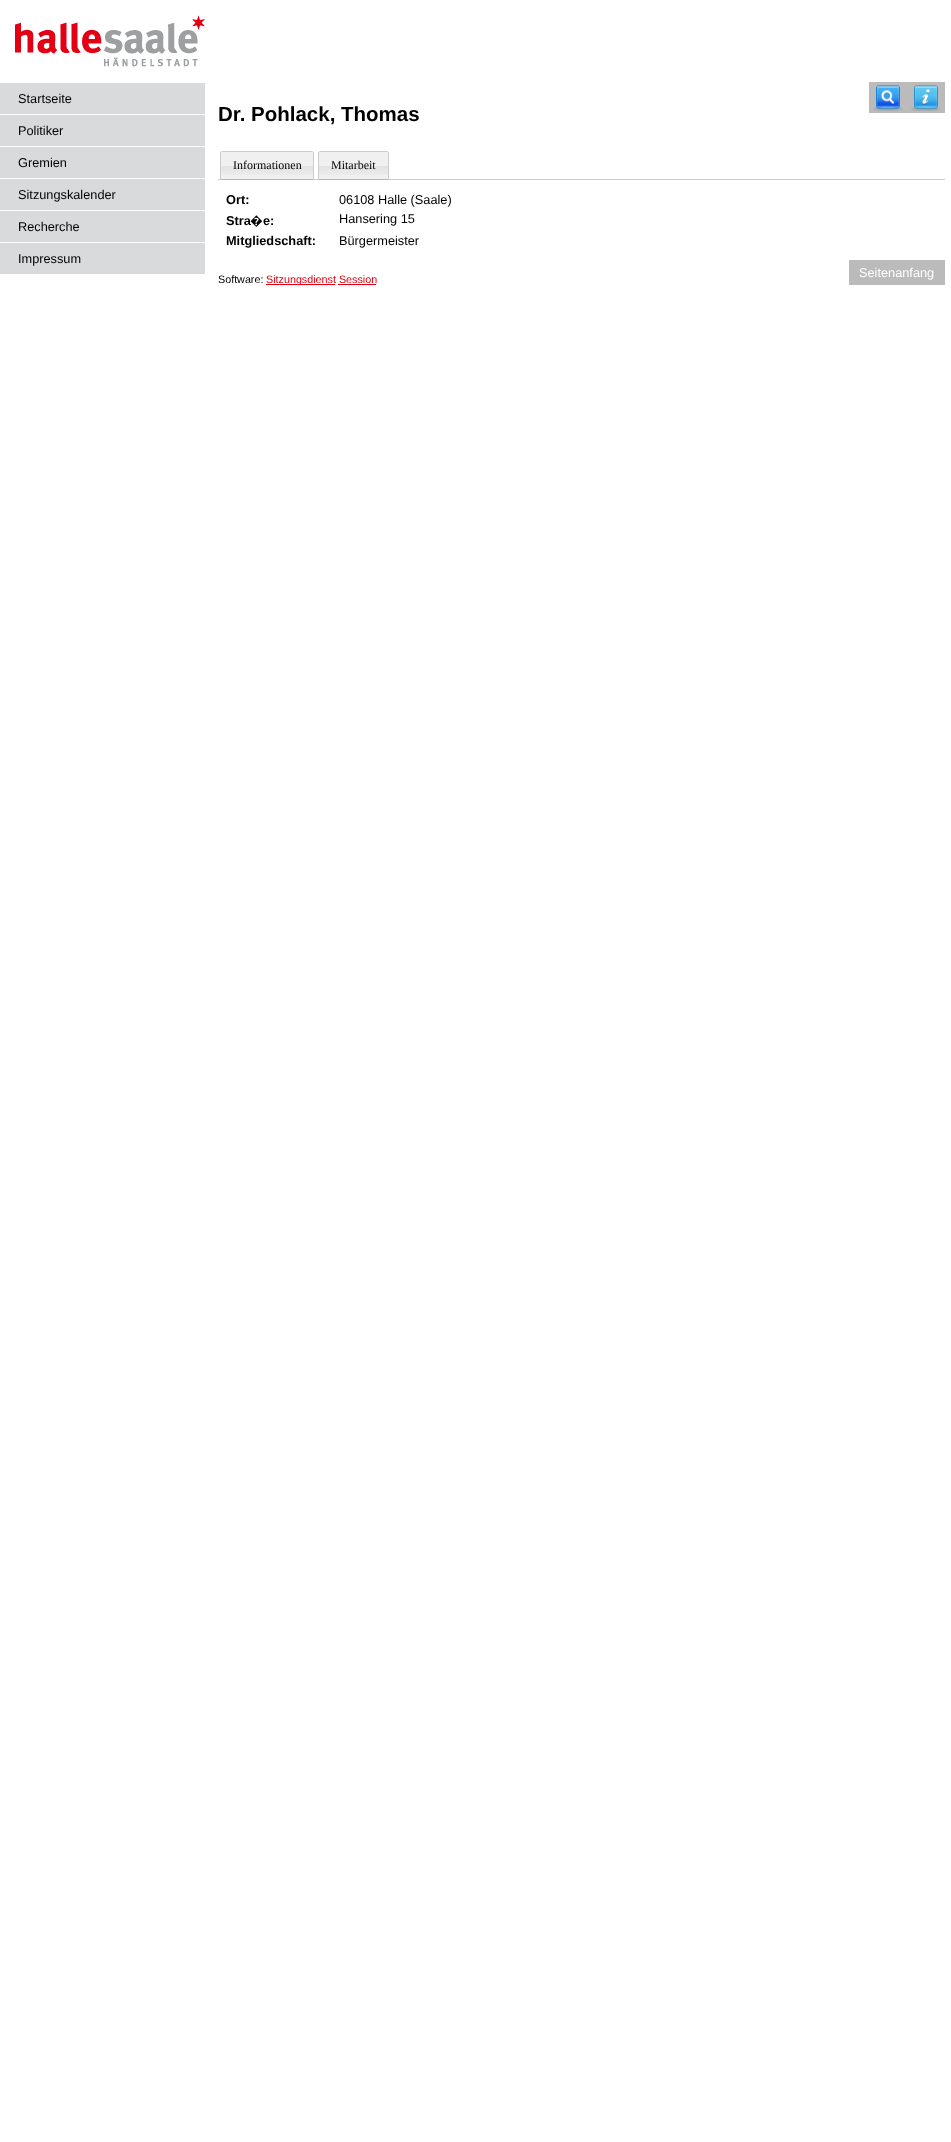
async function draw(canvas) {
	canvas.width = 951;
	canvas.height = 2142;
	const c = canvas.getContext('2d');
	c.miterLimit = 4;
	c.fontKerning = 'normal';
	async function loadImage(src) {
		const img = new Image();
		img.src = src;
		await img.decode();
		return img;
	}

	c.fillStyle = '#fff';
	c.fillRect(0, 0, 951, 2142);
	c.drawImage(await loadImage('img1.png'), 15, 15, 190, 52);
	c.fillStyle = '#d8dadb';
	c.fillRect(0, 83, 205, 31);
	c.font = '12.75px Liberation Sans';
	c.fillStyle = '#000';
	c.fillText('Startseite', 18, 103);
	c.fillStyle = '#d8dadb';
	c.fillRect(0, 115, 205, 31);
	c.fillStyle = '#000';
	c.fillText('Politiker', 18, 135);
	c.fillStyle = '#d8dadb';
	c.fillRect(0, 147, 205, 31);
	c.fillStyle = '#000';
	c.fillText('Gremien', 18, 167);
	c.fillStyle = '#d8dadb';
	c.fillRect(0, 179, 205, 31);
	c.fillStyle = '#000';
	c.fillText('Sitzungskalender', 18, 199);
	c.fillStyle = '#d8dadb';
	c.fillRect(0, 211, 205, 31);
	c.fillStyle = '#000';
	c.fillText('Recherche', 18, 231);
	c.fillStyle = '#d8dadb';
	c.fillRect(0, 243, 205, 31);
	c.fillStyle = '#000';
	c.fillText('Impressum', 18, 263);
	c.fillStyle = '#bbb';
	c.fillRect(869, 82, 76, 31);
	c.drawImage(await loadImage('img2.png'), 873, 85, 30, 26);
	c.drawImage(await loadImage('img3.png'), 911, 85, 30, 26);
	c.font = 'bold 20.5px Liberation Sans';
	c.fillStyle = '#000';
	c.fillText('Dr. Pohlack, Thomas', 218, 121);
	c.fillStyle = '#ccc';
	c.fillRect(218, 179, 727, 1);
	c.fillStyle = '#f0f0f0';
	c.beginPath();
	c.roundRect(220, 151, 94, 29, [2, 2, 0, 0]);
	c.fill();
	c.drawImage(await loadImage('img4.png'), 221, 166, 92, 9);
	c.fillStyle = '#ccc';
	c.beginPath();
	c.moveTo(222, 151);
	c.lineTo(221, 152);
	c.lineTo(222, 152);
	c.lineTo(313, 152);
	c.lineTo(312, 151);
	c.closePath();
	c.fill();
	c.beginPath();
	c.moveTo(314, 180);
	c.lineTo(314, 153);
	c.lineTo(313.5, 151.5);
	c.lineTo(313, 152);
	c.lineTo(313, 179);
	c.closePath();
	c.fill();
	c.fillStyle = '#b7b7b7';
	c.beginPath();
	c.moveTo(314, 180);
	c.lineTo(313, 179);
	c.lineTo(221, 179);
	c.lineTo(220, 180);
	c.closePath();
	c.fill();
	c.fillStyle = '#ccc';
	c.beginPath();
	c.moveTo(220, 180);
	c.lineTo(221, 179);
	c.lineTo(221, 153);
	c.lineTo(221.5, 152.5);
	c.lineTo(220.5, 151.5);
	c.lineTo(220, 153);
	c.closePath();
	c.fill();
	c.font = '12px Liberation Serif';
	c.fillStyle = '#000';
	c.fillText('Informationen', 233, 169);
	c.fillStyle = '#f0f0f0';
	c.beginPath();
	c.roundRect(318, 151, 71, 29, [2, 2, 0, 0]);
	c.fill();
	c.drawImage(await loadImage('img5.png'), 319, 166, 69, 9);
	c.fillStyle = '#ccc';
	c.beginPath();
	c.moveTo(320, 151);
	c.lineTo(319, 152);
	c.lineTo(320, 152);
	c.lineTo(388, 152);
	c.lineTo(387, 151);
	c.closePath();
	c.fill();
	c.beginPath();
	c.moveTo(389, 180);
	c.lineTo(389, 153);
	c.lineTo(388.5, 151.5);
	c.lineTo(388, 152);
	c.lineTo(388, 179);
	c.closePath();
	c.fill();
	c.fillStyle = '#b7b7b7';
	c.beginPath();
	c.moveTo(389, 180);
	c.lineTo(388, 179);
	c.lineTo(319, 179);
	c.lineTo(318, 180);
	c.closePath();
	c.fill();
	c.fillStyle = '#ccc';
	c.beginPath();
	c.moveTo(318, 180);
	c.lineTo(319, 179);
	c.lineTo(319, 153);
	c.lineTo(319.5, 152.5);
	c.lineTo(318.5, 151.5);
	c.lineTo(318, 153);
	c.closePath();
	c.fill();
	c.fillStyle = '#000';
	c.fillText('Mitarbeit', 331, 169);
	c.font = 'bold 12.75px Liberation Sans';
	c.fillText('Ort:', 226, 204);
	c.font = '12.75px Liberation Sans';
	c.fillText('06108 Halle (Saale)', 339, 204);
	c.font = 'bold 12.75px Liberation Sans';
	c.fillText('Stra', 226, 225);
	c.font = 'bold 12.75px Noto Sans';
	c.fillText('�', 250, 225);
	c.font = 'bold 12.75px Liberation Sans';
	c.fillText('e:', 263, 225);
	c.font = '12.75px Liberation Sans';
	c.fillText('Hansering 15', 339, 223);
	c.font = 'bold 12.75px Liberation Sans';
	c.fillText('Mitgliedschaft:', 226, 245);
	c.font = '12.75px Liberation Sans';
	c.fillText('Bürgermeister', 339, 245);
	c.font = '10.75px Liberation Sans';
	c.fillText('Software:', 218, 283);
	c.fillStyle = '#e30013';
	c.fillRect(266, 284, 69, 1);
	c.fillText('Sitzungsdienst Session', 266, 283);
	c.fillRect(338, 284, 38, 1);
	c.fillStyle = '#bbb';
	c.fillRect(849, 260, 96, 25);
	c.font = '12.75px Liberation Sans';
	c.fillStyle = '#fff';
	c.fillText('Seitenanfang', 859, 277);
}

draw(document.querySelector('canvas'));
